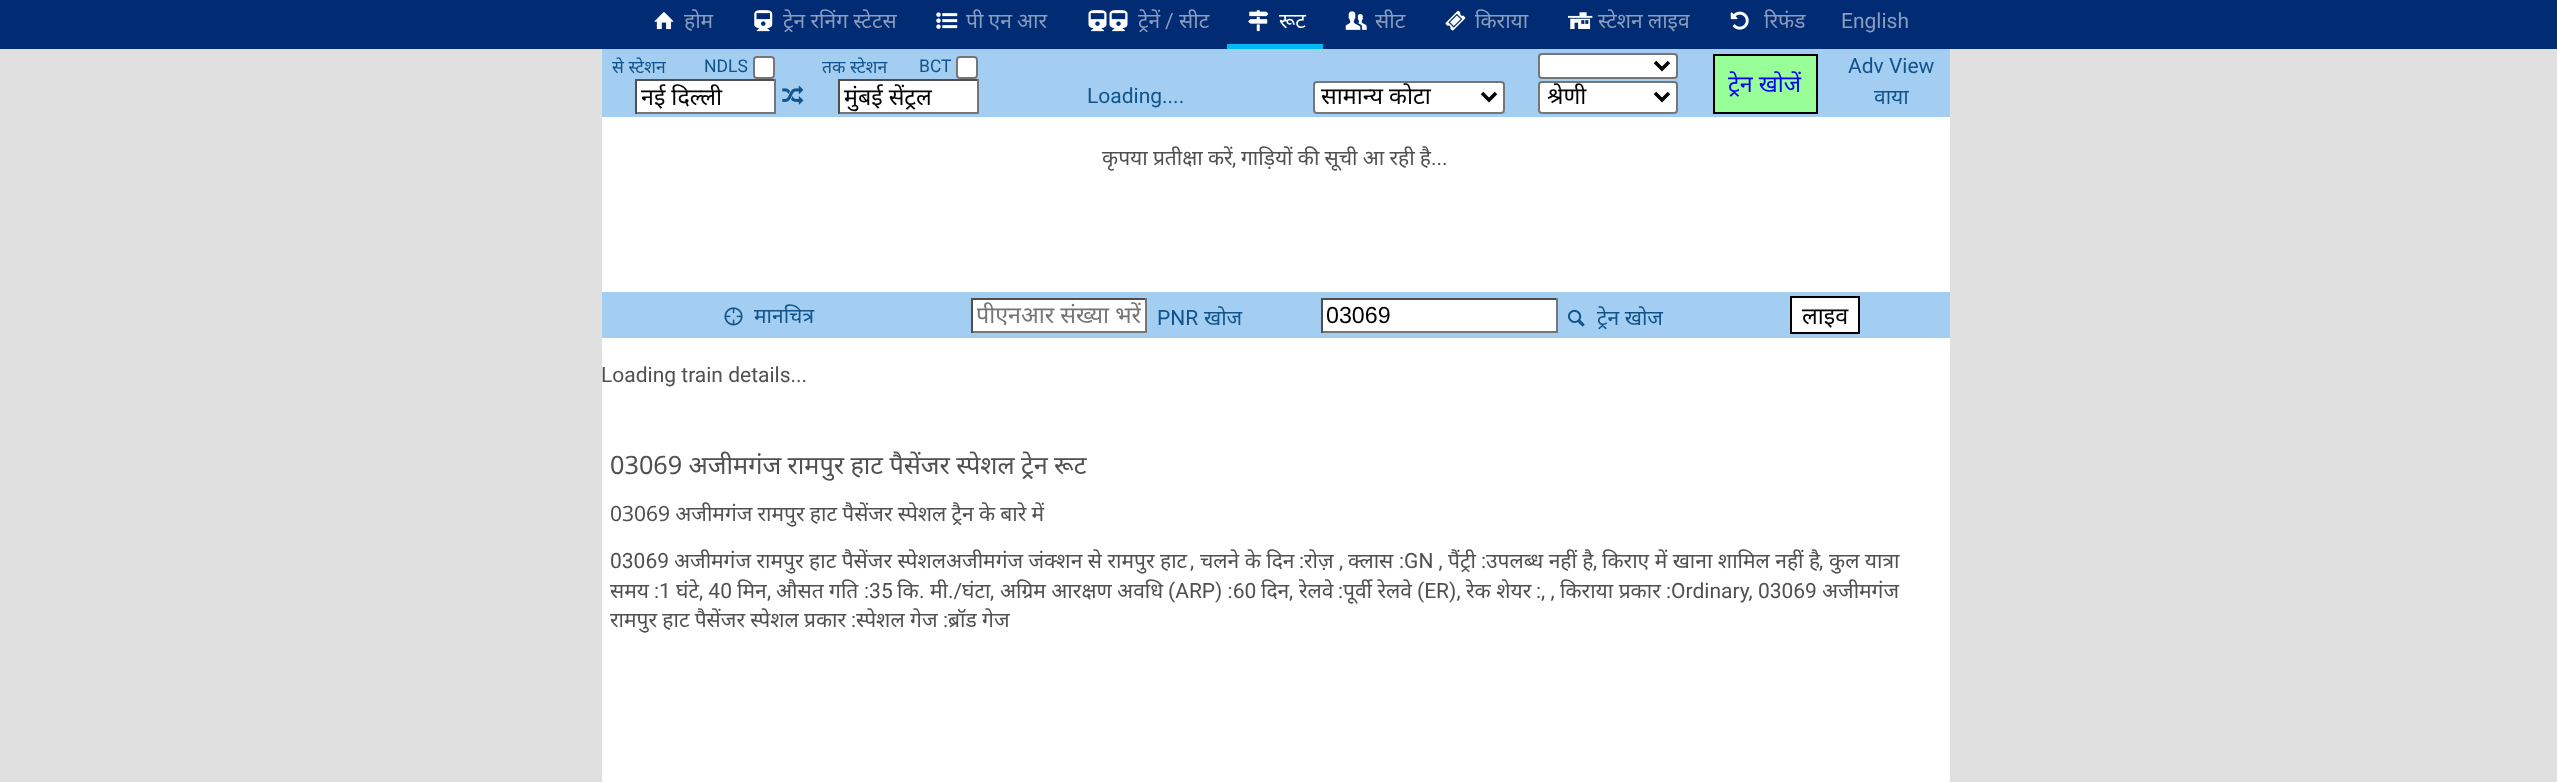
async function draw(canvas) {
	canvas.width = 2557;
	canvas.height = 782;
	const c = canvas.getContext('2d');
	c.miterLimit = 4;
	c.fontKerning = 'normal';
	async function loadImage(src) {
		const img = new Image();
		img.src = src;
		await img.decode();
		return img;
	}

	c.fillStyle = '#e0e0e0';
	c.fillRect(0, 0, 2557, 782);
	c.fillStyle = '#012b72';
	c.fillRect(0, 0, 2557, 49);
	c.drawImage(await loadImage('img1.png'), 654, 12, 20, 18);
	c.font = '21px Noto Sans';
	c.fillStyle = '#8a9dbe';
	c.fillText('होम', 684, 28);
	c.drawImage(await loadImage('img2.png'), 754, 10, 19, 22);
	c.wordSpacing = '-0.25px';
	c.fillText('ट्रेन रनिंग स्टेटस', 783, 28);
	c.drawImage(await loadImage('img3.png'), 936, 12, 22, 17);
	c.fillText('पी एन आर', 966, 28);
	c.drawImage(await loadImage('img4.png'), 1088, 10, 19, 22);
	c.drawImage(await loadImage('img4.png'), 1109, 10, 19, 22);
	c.wordSpacing = '0px';
	c.fillText('ट्रेनें', 1138, 28);
	c.font = '21px Roboto';
	c.fillText('/', 1165, 28);
	c.font = '21px Noto Sans';
	c.fillText('सीट', 1179, 28);
	c.fillStyle = '#00b9f5';
	c.fillRect(1227, 44, 96, 5);
	c.drawImage(await loadImage('img5.png'), 1248, 10, 21, 22);
	c.fillStyle = '#fff';
	c.fillText('रूट', 1279, 28);
	c.drawImage(await loadImage('img6.png'), 1345, 11, 22, 19);
	c.fillStyle = '#8a9dbe';
	c.fillText('सीट', 1375, 28);
	c.drawImage(await loadImage('img7.png'), 1445, 10, 21, 21);
	c.fillText('किराया', 1475, 28);
	c.drawImage(await loadImage('img8.png'), 1568, 12, 25, 17);
	c.wordSpacing = '-0.25px';
	c.fillText('स्टेशन लाइव', 1598, 28);
	c.drawImage(await loadImage('img9.png'), 1730, 11, 19, 19);
	c.wordSpacing = '0px';
	c.fillText('रिफंड', 1764, 28);
	c.font = '21px Roboto';
	c.fillText('English', 1841, 28);
	c.fillStyle = '#fff';
	c.fillRect(602, 117, 1348, 665);
	c.fillStyle = '#a4cef1';
	c.fillRect(602, 49, 1348, 68);
	c.font = '17.5px Noto Sans';
	c.fillStyle = '#11548b';
	c.fillText('से स्टेशन', 612, 73);
	c.font = '17.5px Roboto';
	c.fillText('NDLS', 704, 72);
	c.fillStyle = '#fff';
	c.beginPath();
	c.roundRect(754, 57, 20, 21, 3);
	c.fill();
	c.strokeStyle = '#767676';
	c.lineWidth = 2;
	c.stroke();
	c.font = '17.5px Noto Sans';
	c.fillStyle = '#11548b';
	c.fillText('तक स्टेशन', 822, 73);
	c.font = '17.5px Roboto';
	c.fillText('BCT', 919, 72);
	c.fillStyle = '#fff';
	c.beginPath();
	c.roundRect(957, 57, 20, 21, 3);
	c.fill();
	c.stroke();
	c.beginPath();
	c.roundRect(1539, 54, 138, 24, 3);
	c.fill();
	c.stroke();
	c.beginPath();
	c.moveTo(1655, 62);
	c.lineTo(1662, 69);
	c.lineTo(1669, 62);
	c.strokeStyle = '#000';
	c.lineWidth = 3.5;
	c.stroke();
	c.font = '21px Roboto';
	c.fillStyle = '#11548b';
	c.fillText('Adv View', 1848, 73);
	c.fillStyle = '#98ff98';
	c.beginPath();
	c.rect(1714, 55, 103, 58);
	c.fill();
	c.lineWidth = 2;
	c.stroke();
	c.font = '23.25px Noto Sans';
	c.fillStyle = '#00f';
	c.fillText('ट्रेन खोजें', 1728, 92);
	for (const [x, y, w, h, color] of [
		[637, 81, 137, 31, '#fff'],
		[635, 79, 140, 2, '#4f4f4f'],
		[774, 79, 2, 35, '#767676'],
		[635, 112, 140, 2, '#767676'],
		[635, 79, 2, 35, '#4f4f4f'],
	]) {
		c.fillStyle = color;
		c.fillRect(x, y, w, h);
	}
	c.save();
	c.beginPath();
	c.rect(641, 81, 129, 31);
	c.clip();
	c.fillStyle = '#000';
	c.fillText('नई दिल्ली', 641, 105);
	c.restore();
	c.drawImage(await loadImage('img10.png'), 782, 85, 22, 20);
	for (const [x, y, w, h, color] of [
		[840, 81, 137, 31, '#fff'],
		[838, 79, 140, 2, '#4f4f4f'],
		[977, 79, 2, 35, '#767676'],
		[838, 112, 140, 2, '#767676'],
		[838, 79, 2, 35, '#4f4f4f'],
	]) {
		c.fillStyle = color;
		c.fillRect(x, y, w, h);
	}
	c.save();
	c.beginPath();
	c.rect(844, 81, 129, 31);
	c.clip();
	c.fillStyle = '#000';
	c.fillText('मुंबई सेंट्रल', 844, 105);
	c.restore();
	c.font = '21px Roboto';
	c.fillStyle = '#11548b';
	c.fillText('Loading....', 1087, 103);
	c.fillStyle = '#fff';
	c.beginPath();
	c.roundRect(1314, 82, 190, 31, 3);
	c.fill();
	c.strokeStyle = '#767676';
	c.stroke();
	c.beginPath();
	c.moveTo(1482, 93);
	c.lineTo(1489, 100);
	c.lineTo(1496, 93);
	c.strokeStyle = '#000';
	c.lineWidth = 3.5;
	c.stroke();
	c.font = '23.25px Noto Sans';
	c.fillStyle = '#000';
	c.fillText('सामान्य कोटा', 1321, 104);
	c.fillStyle = '#fff';
	c.beginPath();
	c.roundRect(1539, 82, 138, 31, 3);
	c.fill();
	c.strokeStyle = '#767676';
	c.lineWidth = 2;
	c.stroke();
	c.beginPath();
	c.moveTo(1655, 93);
	c.lineTo(1662, 100);
	c.lineTo(1669, 93);
	c.strokeStyle = '#000';
	c.lineWidth = 3.5;
	c.stroke();
	c.save();
	c.beginPath();
	c.rect(1547, 82, 102, 30);
	c.clip();
	c.fillStyle = '#000';
	c.fillText('श्रेणी', 1547, 104);
	c.restore();
	c.font = '21px Noto Sans';
	c.fillStyle = '#11548b';
	c.fillText('वाया', 1874, 104);
	c.wordSpacing = '-0.25px';
	c.fillStyle = '#505050';
	c.fillText('कृपया प्रतीक्षा करें', 1102, 165);
	c.wordSpacing = '0px';
	c.font = '21px Roboto';
	c.fillText(',', 1232, 165);
	c.wordSpacing = '-0.25px';
	c.font = '21px Noto Sans';
	c.fillText('गाड़ियों की सूची आ रही है', 1241, 165);
	c.wordSpacing = '0px';
	c.font = '21px Roboto';
	c.fillText('...', 1431, 165);
	c.fillStyle = '#a4cef1';
	c.fillRect(602, 292, 1348, 46);
	c.drawImage(await loadImage('img11.png'), 724, 307, 19, 19);
	c.font = '21px Noto Sans';
	c.fillStyle = '#11548b';
	c.fillText('मानचित्र', 754, 323);
	for (const [x, y, w, h, color] of [
		[973, 300, 172, 31, '#fff'],
		[971, 298, 175, 2, '#4f4f4f'],
		[1145, 298, 2, 35, '#767676'],
		[971, 331, 175, 2, '#767676'],
		[971, 298, 2, 35, '#4f4f4f'],
	]) {
		c.fillStyle = color;
		c.fillRect(x, y, w, h);
	}
	c.save();
	c.beginPath();
	c.rect(977, 299, 164, 32);
	c.clip();
	c.font = '23.25px Noto Sans';
	c.fillStyle = '#757575';
	c.fillText('पीएनआर संख्या भरें', 976, 323);
	c.restore();
	c.font = '21px Roboto';
	c.fillStyle = '#11548b';
	c.fillText('PNR', 1157, 325);
	c.font = '21px Noto Sans';
	c.fillText('खोज', 1204, 325);
	for (const [x, y, w, h, color] of [
		[1323, 300, 233, 31, '#fff'],
		[1321, 298, 237, 2, '#4f4f4f'],
		[1556, 298, 2, 35, '#767676'],
		[1321, 331, 237, 2, '#767676'],
		[1321, 298, 2, 35, '#4f4f4f'],
	]) {
		c.fillStyle = color;
		c.fillRect(x, y, w, h);
	}
	c.save();
	c.beginPath();
	c.rect(1327, 303, 225, 26);
	c.clip();
	c.font = '23.25px Liberation Sans';
	c.fillStyle = '#000';
	c.fillText('03069', 1326, 323);
	c.restore();
	c.drawImage(await loadImage('img12.png'), 1568, 309, 17, 18);
	c.fillStyle = '#11548b';
	c.fillText('ट्रेन खोज', 1597, 325);
	c.fillStyle = '#fff';
	c.beginPath();
	c.rect(1791, 297, 68, 36);
	c.fill();
	c.lineWidth = 2;
	c.stroke();
	c.font = '23.25px Noto Sans';
	c.fillStyle = '#000';
	c.fillText('लाइव', 1802, 324);
	c.font = '21px Roboto';
	c.fillStyle = '#505050';
	c.fillText('Loading train details...', 601, 382);
	c.wordSpacing = '-0.25px';
	c.font = '25.25px Noto Sans';
	c.fillText('03069 अजीमगंज रामपुर हाट पैसेंजर स्पेशल ट्रेन रूट', 610, 474);
	c.font = '21px Noto Sans';
	c.fillText('03069 अजीमगंज रामपुर हाट पैसेंजर स्पेशल ट्रैन के बारे में', 610, 521);
	c.wordSpacing = '0px';
	c.font = '21px Roboto';
	c.fillText('03069', 610, 568);
	c.font = '21px Noto Sans';
	c.fillText('अजीमगंज रामपुर हाट पैसेंजर स्पेशलअजीमगंज जंक्शन से रामपुर हाट', 674, 568);
	c.fillText('चलने के दिन', 1200, 568);
	c.font = '21px Roboto';
	c.fillText(':', 1299, 568);
	c.font = '21px Noto Sans';
	c.fillText('रोज़', 1304, 568);
	c.fillText('क्लास', 1348, 568);
	c.font = '21px Roboto';
	c.fillText(':GN ,', 1399, 568);
	c.font = '21px Noto Sans';
	for (const [text, x, y] of [
		['पैंट्री', 1448, 568],
		['उपलब्ध नहीं है', 1486, 568],
		['किराए में खाना शामिल नहीं है', 1602, 568],
	]) {
		c.fillText(text, x, y);
	}
	c.font = '21px Roboto';
	c.fillText(',', 1819, 568);
	c.font = '21px Noto Sans';
	c.fillText('कुल यात्रा', 1829, 568);
	c.font = '21px Roboto';
	for (const [text, x, y] of [
		[',', 1190, 568],
		[',', 1339, 568],
		[':', 1481, 568],
		[',', 1593, 568],
	]) {
		c.fillText(text, x, y);
	}
	c.font = '21px Noto Sans';
	c.fillText('समय', 610, 598);
	c.font = '21px Roboto';
	c.fillText(':1', 654, 598);
	c.font = '21px Noto Sans';
	c.fillText('घंटे', 676, 598);
	c.font = '21px Roboto';
	c.fillText(', 40', 699, 598);
	c.font = '21px Noto Sans';
	c.fillText('मिन', 737, 598);
	c.fillText('औसत गति', 776, 598);
	c.font = '21px Roboto';
	c.fillText(':35', 864, 598);
	c.font = '21px Noto Sans';
	c.fillText('कि', 897, 598);
	c.fillText('मी', 930, 598);
	c.font = '21px Roboto';
	c.fillText('./', 948, 598);
	c.font = '21px Noto Sans';
	c.fillText('घंटा', 962, 598);
	c.fillText('अग्रिम आरक्षण अवधि', 1000, 598);
	c.font = '21px Roboto';
	c.fillText('(ARP) :60', 1168, 598);
	c.font = '21px Noto Sans';
	c.fillText('दिन', 1261, 598);
	c.font = '21px Roboto';
	c.fillText(',', 1289, 598);
	c.font = '21px Noto Sans';
	c.fillText('रेलवे', 1299, 598);
	c.font = '21px Roboto';
	c.fillText(':', 1338, 598);
	c.font = '21px Noto Sans';
	c.fillText('पूर्वी रेलवे', 1343, 598);
	c.font = '21px Roboto';
	c.fillText('(ER),', 1417, 598);
	c.font = '21px Noto Sans';
	c.fillText('रेक शेयर', 1466, 598);
	c.fillText('किराया प्रकार', 1560, 598);
	c.font = '21px Roboto';
	c.fillText(':Ordinary, 03069', 1666, 598);
	c.font = '21px Noto Sans';
	c.fillText('अजीमगंज', 1822, 598);
	c.font = '21px Roboto';
	for (const [text, x, y] of [
		[',', 767, 598],
		['.', 919, 598],
		[',', 990, 598],
		[':, ,', 1536, 598],
	]) {
		c.fillText(text, x, y);
	}
	c.wordSpacing = '-0.25px';
	c.font = '21px Noto Sans';
	c.fillText('रामपुर हाट पैसेंजर स्पेशल', 610, 627);
	c.wordSpacing = '0px';
	c.fillText('प्रकार', 804, 627);
	c.font = '21px Roboto';
	c.fillText(':', 851, 627);
	c.font = '21px Noto Sans';
	c.fillText('स्पेशल गेज', 856, 627);
	c.font = '21px Roboto';
	c.fillText(':', 943, 627);
	c.font = '21px Noto Sans';
	c.fillText('ब्रॉड गेज', 948, 627);
}

draw(document.querySelector('canvas'));
